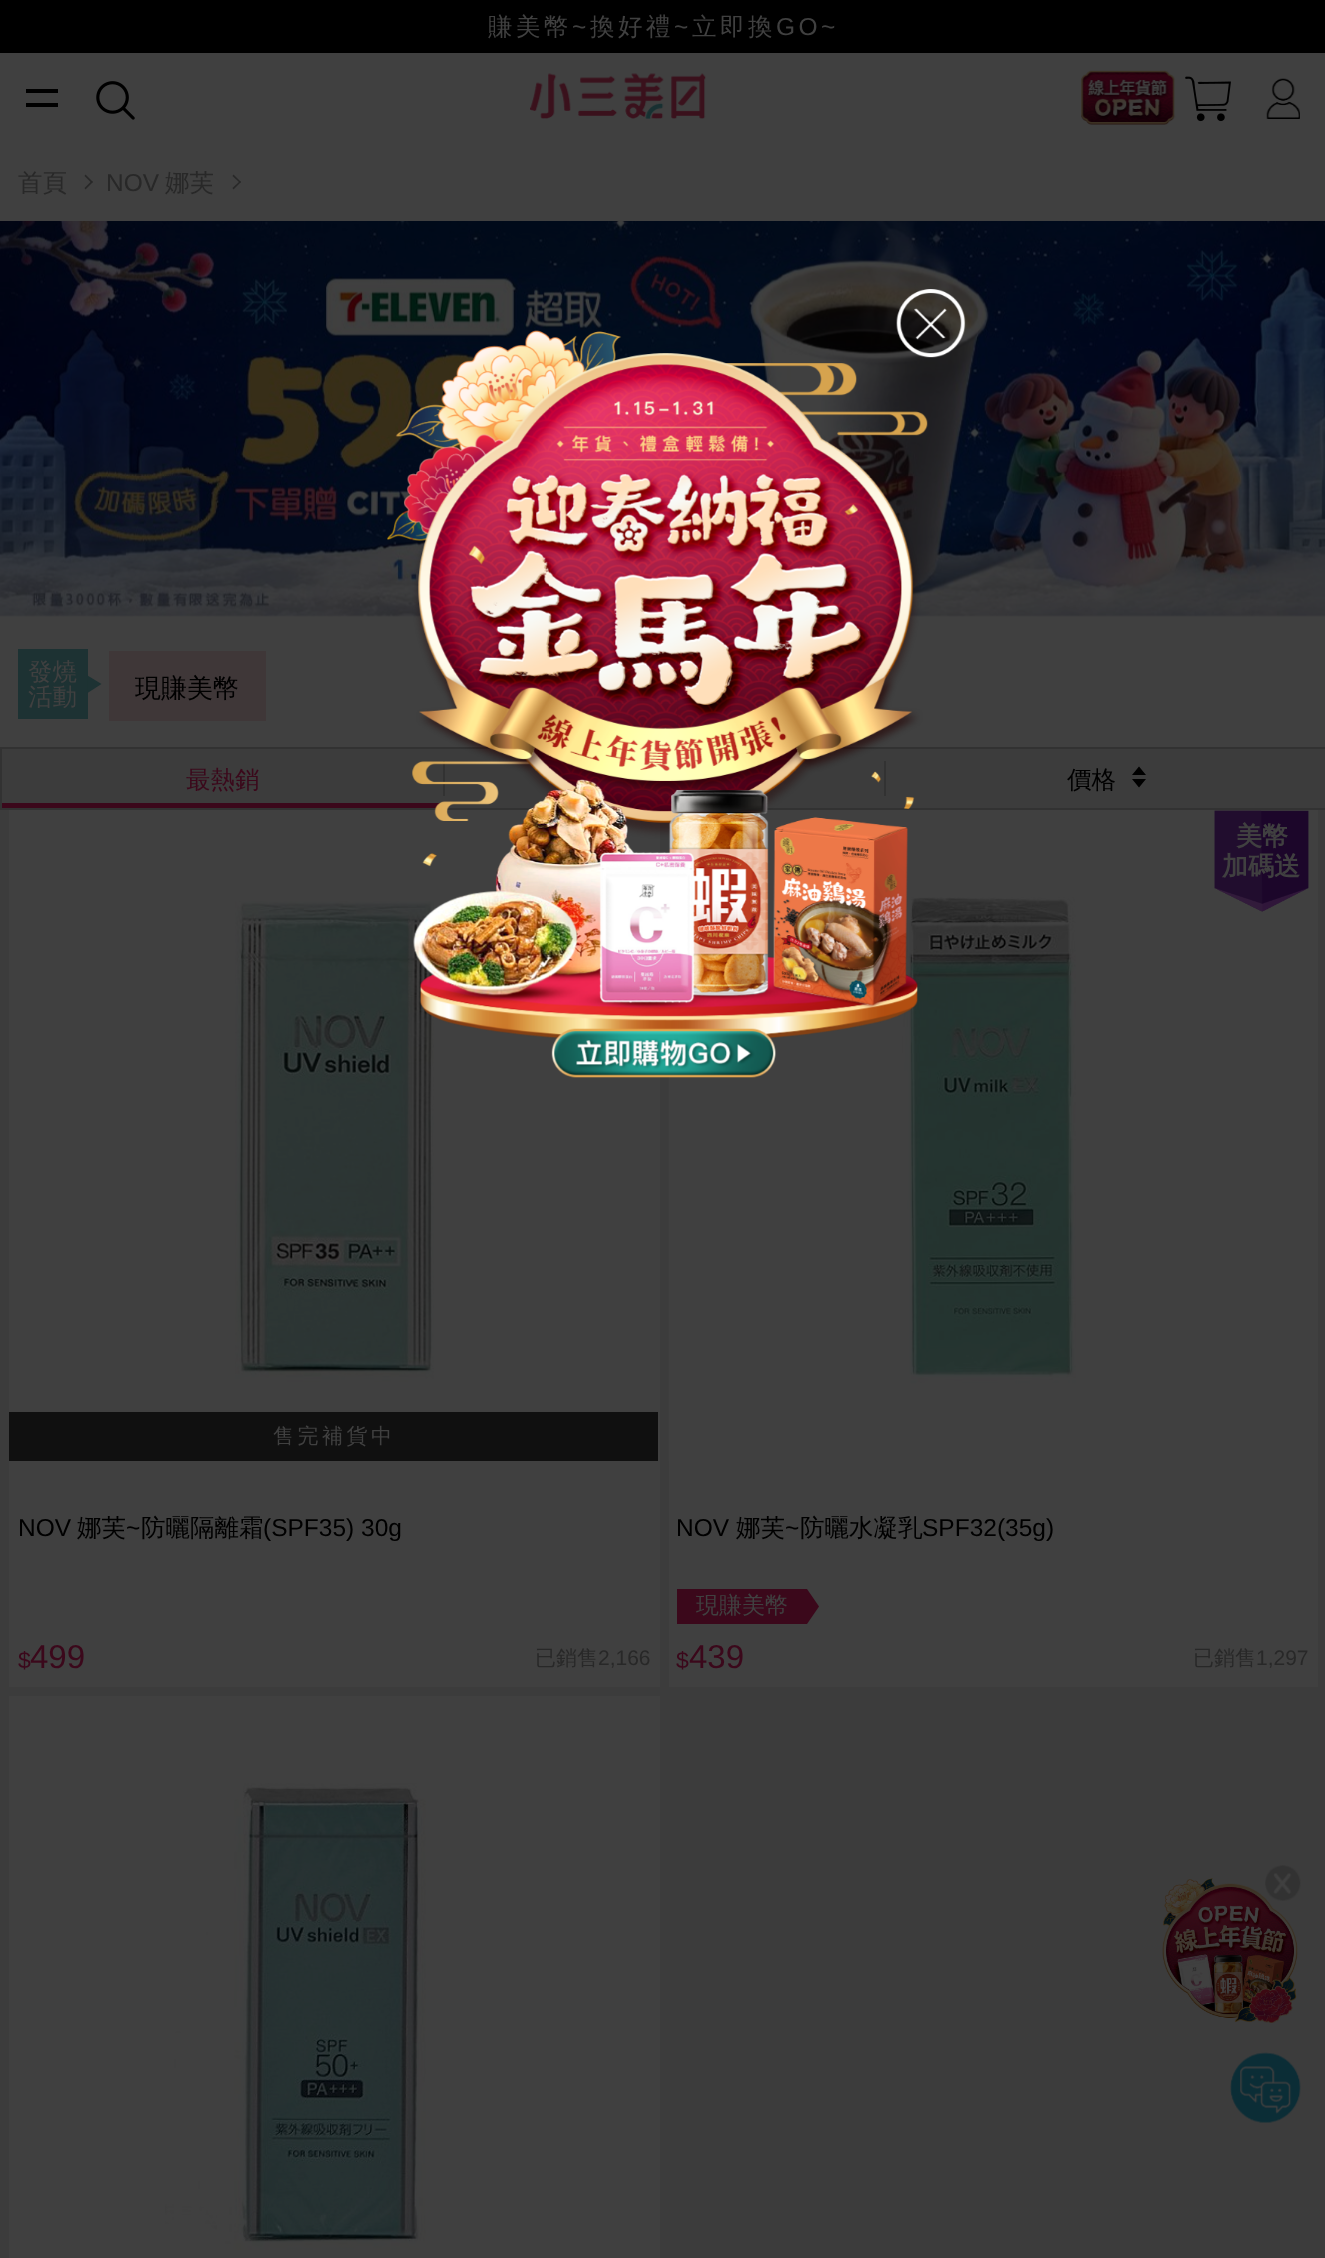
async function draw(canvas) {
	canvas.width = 1325;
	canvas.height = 2258;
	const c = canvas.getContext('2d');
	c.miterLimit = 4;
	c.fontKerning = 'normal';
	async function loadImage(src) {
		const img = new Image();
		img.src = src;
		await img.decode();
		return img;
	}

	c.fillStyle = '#404040';
	c.fillRect(0, 0, 1325, 2258);
	c.fillStyle = '#000';
	c.fillRect(0, 0, 1325, 53);
	c.letterSpacing = '3.5px';
	c.font = '500 24.5px WenQuanYi Zen Hei';
	c.fillStyle = '#404040';
	c.fillText('賺美幣', 488, 35);
	c.font = '24.5px Liberation Sans';
	c.fillText('~', 572, 35);
	c.font = '500 24.5px WenQuanYi Zen Hei';
	c.fillText('換好禮', 590, 35);
	c.font = '24.5px Liberation Sans';
	c.fillText('~', 674, 35);
	c.font = '500 24.5px WenQuanYi Zen Hei';
	c.fillText('立即換', 692, 35);
	c.font = '24.5px Liberation Sans';
	c.fillText('GO~', 776, 35);
	c.fillStyle = '#000';
	c.fillRect(26, 89, 32, 4);
	c.fillRect(26, 103, 32, 4);
	c.drawImage(await loadImage('img1.png'), 96, 81, 39, 39);
	c.drawImage(await loadImage('img2.png'), 530, 73, 176, 46);
	c.drawImage(await loadImage('img3.png'), 1081, 70, 95, 55);
	c.drawImage(await loadImage('img4.png'), 1185, 76, 46, 46);
	c.drawImage(await loadImage('img5.png'), 1266, 78, 34, 41);
	c.fillStyle = '#3c3c3c';
	c.fillRect(0, 749, 1325, 1509);
	c.letterSpacing = '0px';
	c.font = '500 24.5px WenQuanYi Zen Hei';
	c.fillStyle = '#282828';
	c.fillText('首頁', 18, 191);
	c.beginPath();
	c.moveTo(85.5, 174.5);
	c.lineTo(93, 182);
	c.lineTo(91.5, 183);
	c.lineTo(84.5, 176);
	c.closePath();
	c.fill();
	c.beginPath();
	c.moveTo(91.5, 181);
	c.lineTo(93, 182);
	c.lineTo(85.5, 189.5);
	c.lineTo(84.5, 188);
	c.closePath();
	c.fill();
	c.font = '24.5px Liberation Sans';
	c.fillText('NOV', 106, 191);
	c.font = '500 24.5px WenQuanYi Zen Hei';
	c.fillText('娜芙', 165, 191);
	c.beginPath();
	c.moveTo(233.5, 174.5);
	c.lineTo(241, 182);
	c.lineTo(240, 183);
	c.lineTo(232.5, 176);
	c.closePath();
	c.fill();
	c.beginPath();
	c.moveTo(240, 181);
	c.lineTo(241, 182);
	c.lineTo(233.5, 189.5);
	c.lineTo(232.5, 188);
	c.closePath();
	c.fill();
	c.drawImage(await loadImage('img6.png'), 0, 221, 1325, 396);
	c.fillStyle = '#1d3233';
	c.fillRect(18, 649, 70, 70);
	c.fillStyle = '#404040';
	c.fillText('發燒', 28, 680);
	c.fillStyle = '#1d3233';
	c.beginPath();
	c.moveTo(87.5, 693);
	c.lineTo(87.5, 675.5);
	c.lineTo(101.5, 684);
	c.closePath();
	c.fill();
	c.fillStyle = '#404040';
	c.fillText('活動', 28, 705);
	c.fillStyle = '#3f3738';
	c.fillRect(109, 651, 157, 70);
	c.font = '500 26px WenQuanYi Zen Hei';
	c.fillStyle = '#000';
	c.fillText('現賺美幣', 135, 697);
	c.strokeStyle = '#323232';
	c.lineWidth = 2;
	c.strokeRect(1, 748, 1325, 61);
	c.font = '500 24.5px WenQuanYi Zen Hei';
	c.fillStyle = '#3b081b';
	c.fillText('最熱銷', 186, 788);
	for (const [x, y, w, h, color] of [
		[2, 803, 441, 5, '#3b081b'],
		[443, 761, 2, 35, '#323232'],
		[884, 761, 2, 35, '#323232'],
	]) {
		c.fillStyle = color;
		c.fillRect(x, y, w, h);
	}
	c.fillStyle = '#000';
	c.fillText('價格', 1067, 788);
	c.beginPath();
	c.moveTo(1146, 775);
	c.lineTo(1132, 775);
	c.lineTo(1139, 766.5);
	c.closePath();
	c.moveTo(1132, 779);
	c.lineTo(1146, 779);
	c.lineTo(1139, 787.5);
	c.closePath();
	c.fill();
	c.fillStyle = '#404040';
	c.fillRect(9, 810, 651, 877);
	c.drawImage(await loadImage('img7.png'), 235, 901, 199, 481);
	c.fillStyle = '#101010';
	c.fillRect(9, 1412, 649, 49);
	c.letterSpacing = '3.5px';
	c.font = '500 21px WenQuanYi Zen Hei';
	c.fillStyle = '#404040';
	c.fillText('售完補貨中', 273, 1443);
	c.letterSpacing = '0px';
	c.font = '24.5px Liberation Sans';
	c.fillStyle = '#000';
	c.fillText('NOV', 18, 1536);
	c.font = '500 24.5px WenQuanYi Zen Hei';
	c.fillText('娜芙', 77, 1536);
	c.font = '24.5px Liberation Sans';
	c.fillText('~', 126, 1536);
	c.font = '500 24.5px WenQuanYi Zen Hei';
	c.fillText('防曬隔離霜', 141, 1536);
	c.font = '24.5px Liberation Sans';
	c.fillText('(SPF35) 30g', 263, 1536);
	c.font = '23px Liberation Sans';
	c.fillStyle = '#3b081b';
	c.fillText('$', 18, 1668);
	c.font = '33px Liberation Sans';
	c.fillText('499', 30, 1668);
	c.font = '500 21px WenQuanYi Zen Hei';
	c.fillStyle = '#282828';
	c.fillText('已銷售', 535, 1665);
	c.font = '21px Liberation Sans';
	c.fillText('2,166', 598, 1665);
	c.fillStyle = '#404040';
	c.fillRect(669, 810, 649, 877);
	c.drawImage(await loadImage('img8.png'), 668, 811, 408, 650);
	c.drawImage(await loadImage('img9.png'), 1214, 810, 95, 102);
	c.font = 'bold 26px WenQuanYi Zen Hei';
	c.fillText('美幣', 1236, 845);
	c.fillText('加碼送', 1222, 875);
	c.font = '24.5px Liberation Sans';
	c.fillStyle = '#000';
	c.fillText('NOV', 676, 1536);
	c.font = '500 24.5px WenQuanYi Zen Hei';
	c.fillText('娜芙', 736, 1536);
	c.font = '24.5px Liberation Sans';
	c.fillText('~', 785, 1536);
	c.font = '500 24.5px WenQuanYi Zen Hei';
	c.fillText('防曬水凝乳', 800, 1536);
	c.font = '24.5px Liberation Sans';
	c.fillText('SPF32(35g)', 922, 1536);
	c.fillStyle = '#3b081b';
	c.fillRect(677, 1589, 130, 35);
	c.font = '500 23px WenQuanYi Zen Hei';
	c.fillStyle = '#404040';
	c.fillText('現賺美幣', 696, 1613);
	c.fillStyle = '#3b081b';
	c.beginPath();
	c.moveTo(807, 1624);
	c.lineTo(807, 1589);
	c.lineTo(819, 1606.5);
	c.closePath();
	c.fill();
	c.font = '23px Liberation Sans';
	c.fillText('$', 676, 1668);
	c.font = '33px Liberation Sans';
	c.fillText('439', 689, 1668);
	c.font = '500 21px WenQuanYi Zen Hei';
	c.fillStyle = '#282828';
	c.fillText('已銷售', 1193, 1665);
	c.font = '21px Liberation Sans';
	c.fillText('1,297', 1256, 1665);
	c.fillStyle = '#404040';
	c.fillRect(9, 1696, 651, 562);
	c.drawImage(await loadImage('img10.png'), 165, 1783, 261, 467);
	c.drawImage(await loadImage('img11.png'), 387, 289, 579, 789);
	c.drawImage(await loadImage('img13.png'), 1162, 1878, 136, 145);
	c.drawImage(await loadImage('img12.png'), 1265, 1865, 36, 36);
	c.drawImage(await loadImage('img14.png'), 1230, 2052, 71, 71);
}

draw(document.querySelector('canvas'));
